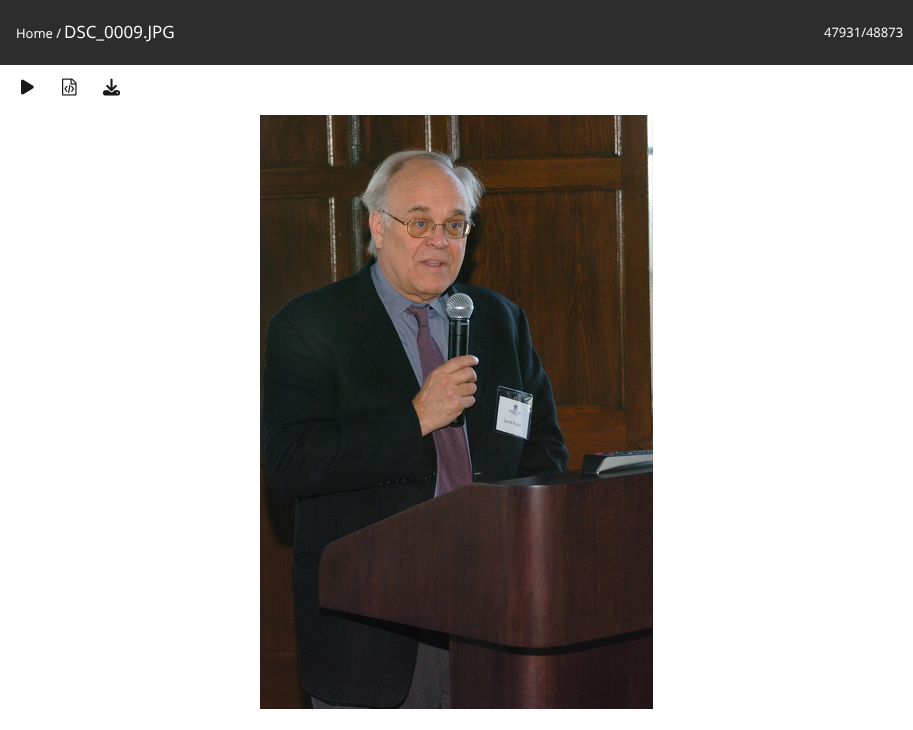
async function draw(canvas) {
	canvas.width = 913;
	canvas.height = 730;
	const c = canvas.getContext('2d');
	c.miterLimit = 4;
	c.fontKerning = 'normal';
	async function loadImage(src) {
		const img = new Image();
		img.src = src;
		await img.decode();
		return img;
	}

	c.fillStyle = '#fff';
	c.fillRect(0, 0, 913, 730);
	c.fillStyle = '#2d2d2d';
	c.fillRect(0, 0, 913, 65);
	c.font = '13px Open Sans';
	c.fillStyle = '#fff';
	c.fillText('Home /', 16, 38);
	c.font = '17px Open Sans';
	c.fillText('DSC_0009.JPG', 64, 38);
	c.font = '13px Open Sans';
	c.fillText('47931/48873', 824, 37);
	c.drawImage(await loadImage('img1.png'), 21, 79, 13, 16);
	c.drawImage(await loadImage('img2.png'), 62, 78, 15, 18);
	c.drawImage(await loadImage('img3.png'), 103, 78, 17, 18);
	c.drawImage(await loadImage('img4.png'), 260, 115, 393, 594);
}

draw(document.querySelector('canvas'));
